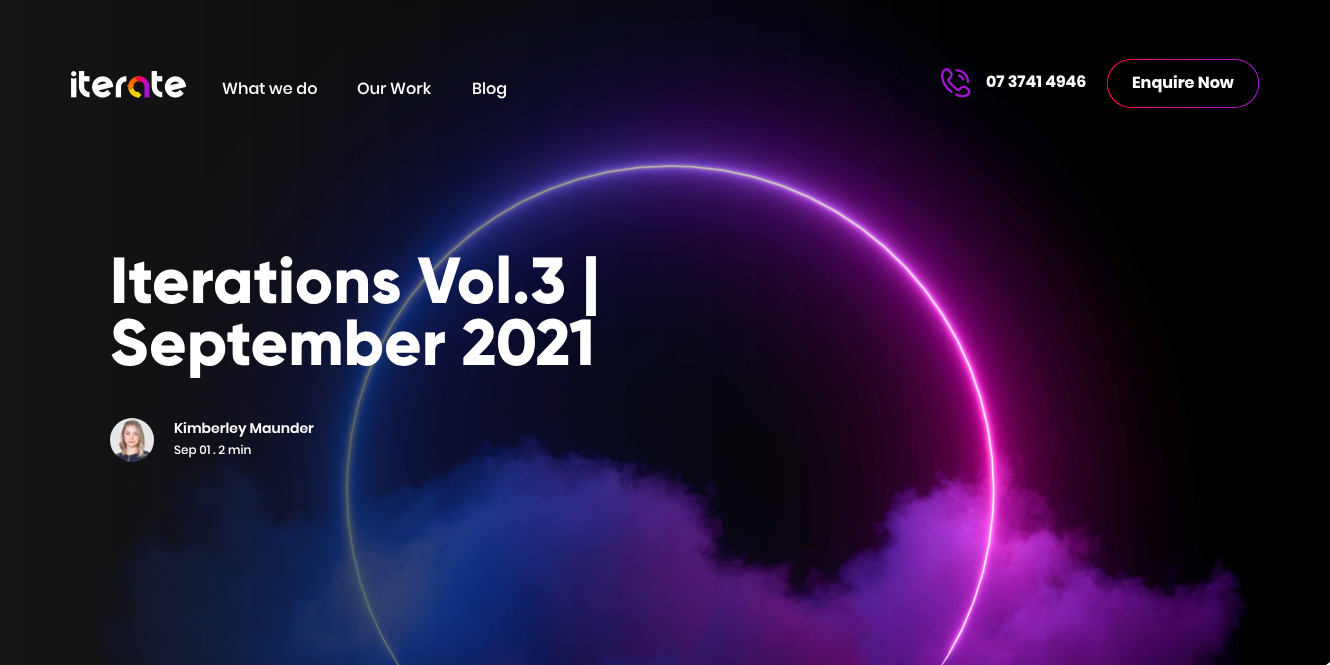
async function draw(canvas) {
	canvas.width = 1330;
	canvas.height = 665;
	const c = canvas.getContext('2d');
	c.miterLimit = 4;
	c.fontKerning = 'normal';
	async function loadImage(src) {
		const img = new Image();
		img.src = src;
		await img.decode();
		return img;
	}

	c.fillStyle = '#fff';
	c.fillRect(0, 0, 1330, 665);
	c.drawImage(await loadImage('img4.png'), 0, 0, 1330, 665);
	c.drawImage(await loadImage('img1.png'), 71, 71, 115, 27);
	c.font = '500 16px Poppins';
	for (const [text, x, y] of [
		['What we do', 222, 94],
		['Our Work', 357, 94],
		['Blog', 472, 94],
	]) {
		c.fillText(text, x, y);
	}
	c.drawImage(await loadImage('img2.png'), 941, 68, 30, 30);
	c.font = 'bold 16px Poppins';
	c.fillText('07 3741 4946', 986, 87);
	c.drawImage(await loadImage('img3.png'), 1107, 59, 153, 49);
	c.fillText('Enquire Now', 1132, 88);
	c.font = '800 65px Gilroy';
	c.fillText('Iterations Vol.3 |', 110, 303);
	c.fillText('September 2021', 110, 365);
	c.drawImage(await loadImage('img5.png'), 110, 418, 44, 44);
	c.font = '600 14px Poppins';
	c.fillText('Kimberley Maunder', 174, 433);
	c.font = '500 12px Poppins';
	c.fillText('Sep 01 . 2 min', 174, 454);
	c.beginPath();
	c.moveTo(0, 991);
	c.lineTo(1330, 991);
	c.bezierCurveTo(1330, 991, 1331, 661, 1330, 662);
	c.bezierCurveTo(1250, 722, 1075, 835, 900, 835);
	c.bezierCurveTo(721, 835, 577, 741, 340, 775);
	c.bezierCurveTo(106, 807, 0, 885, 0, 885);
	c.closePath();
	c.fill('evenodd');
}

draw(document.querySelector('canvas'));
